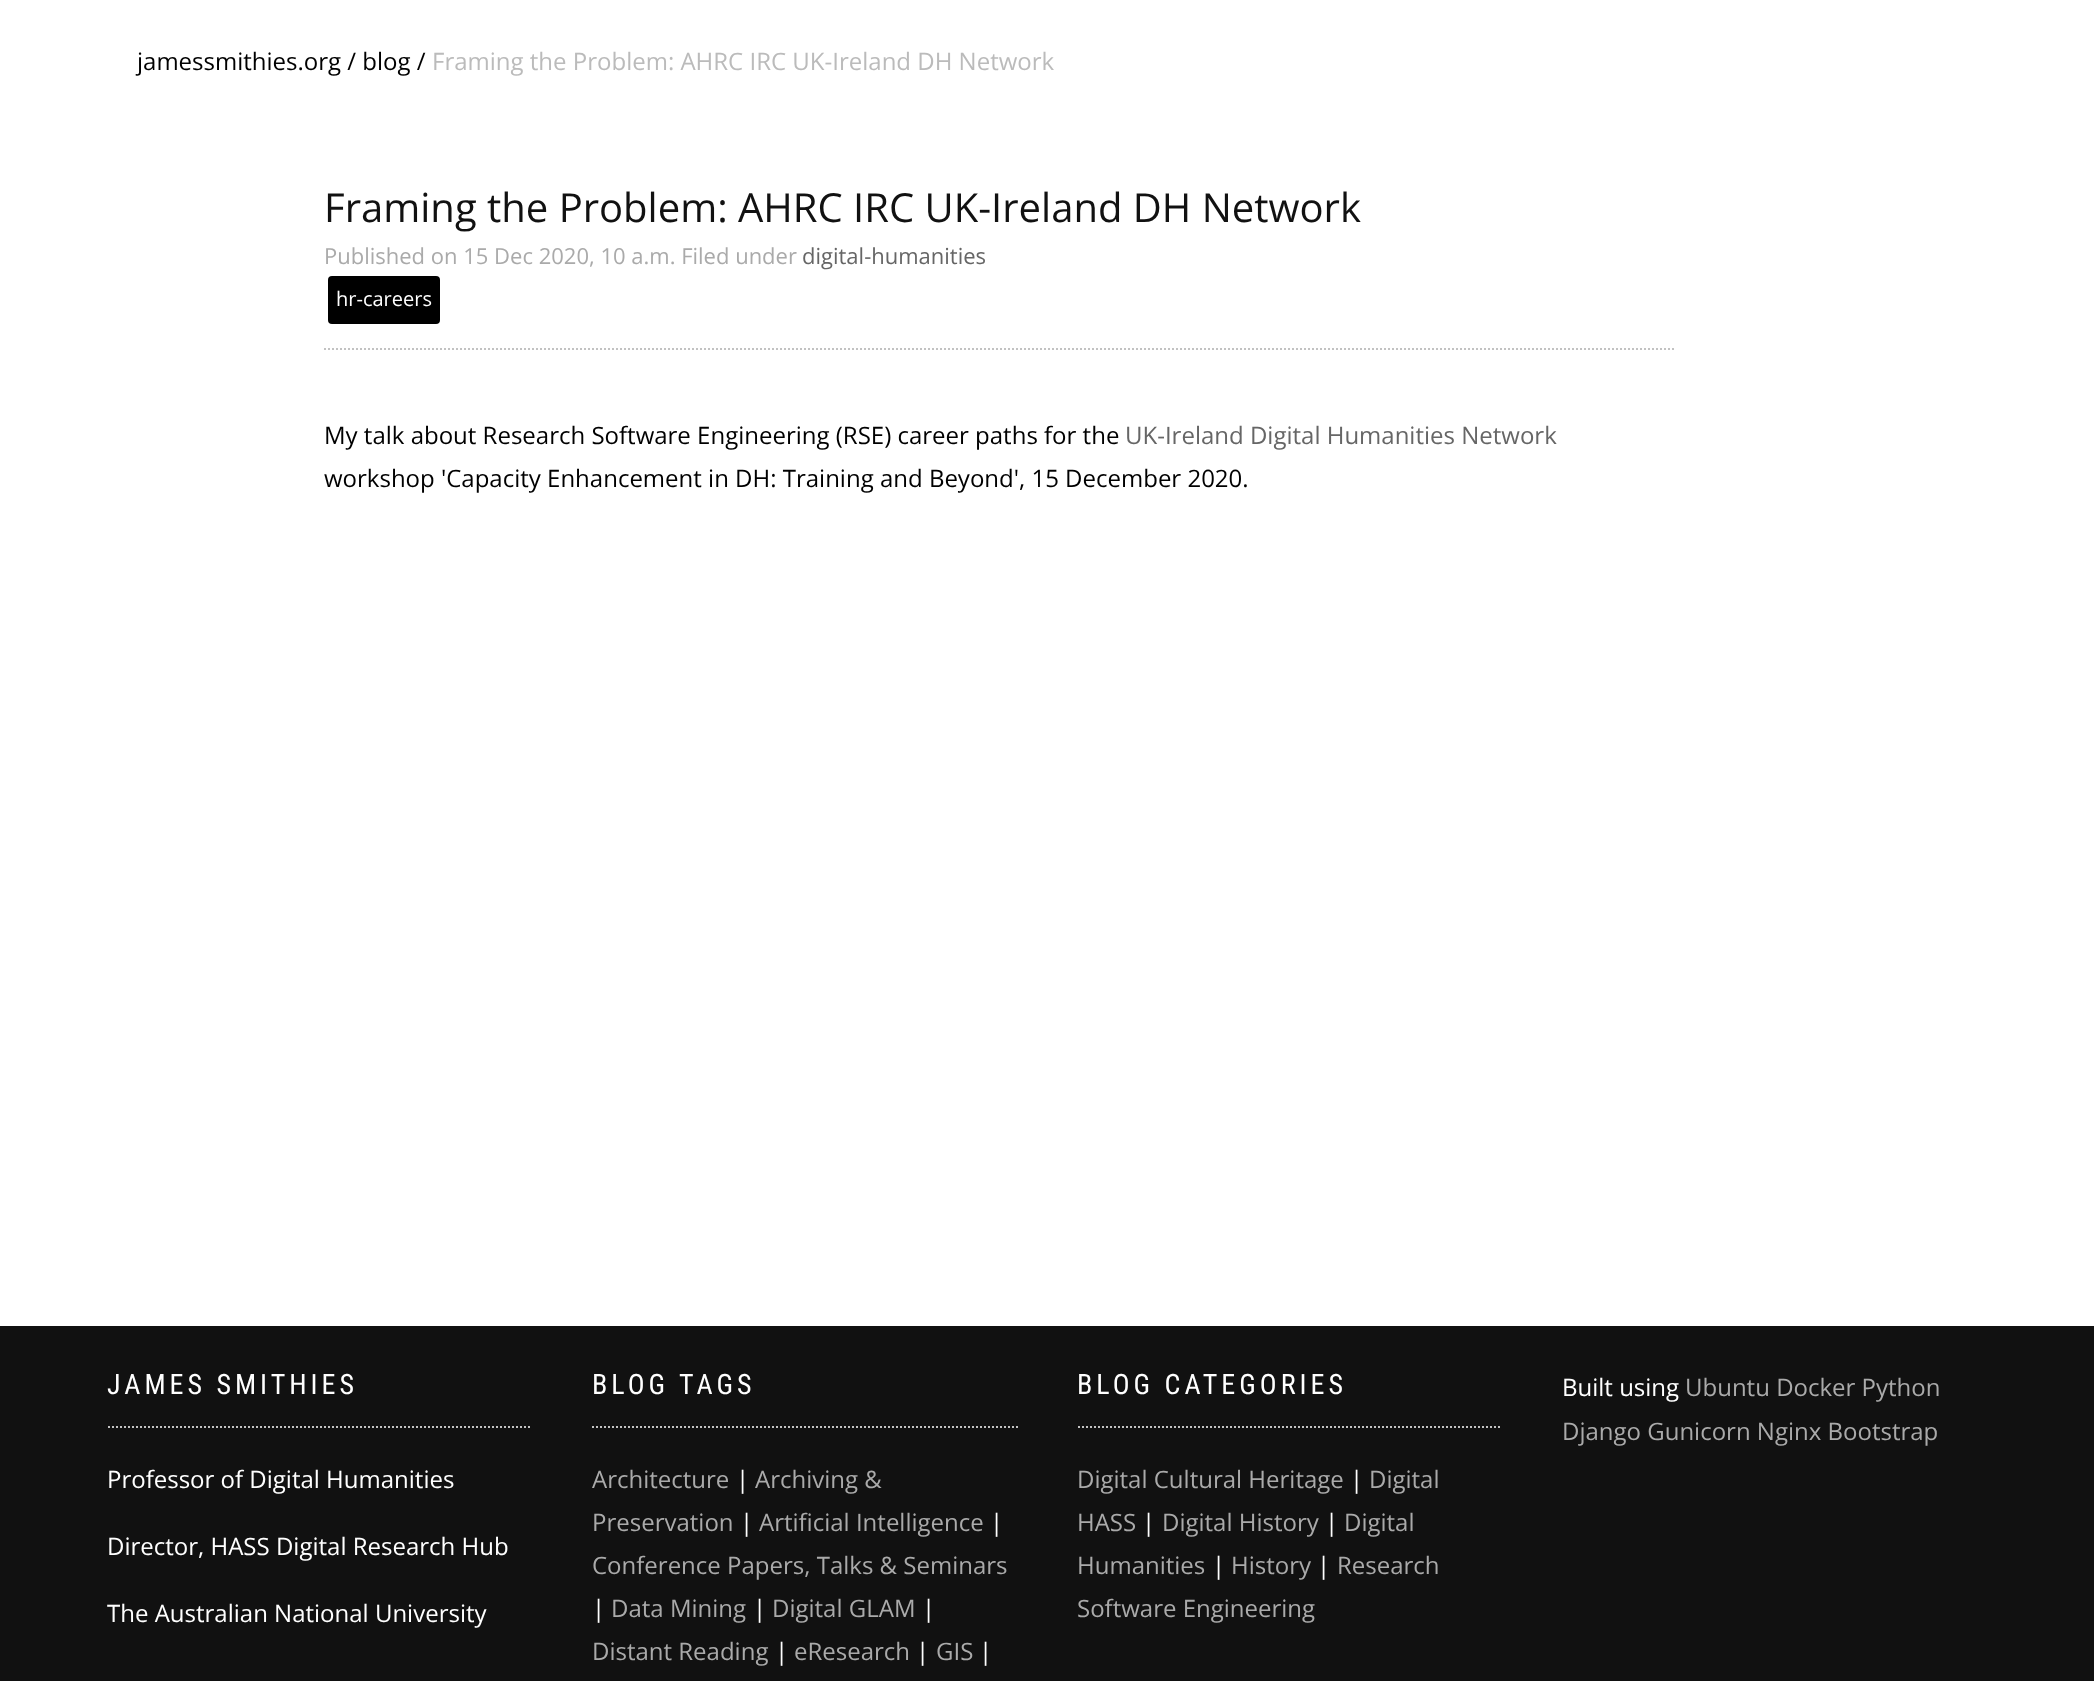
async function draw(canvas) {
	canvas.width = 2094;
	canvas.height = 1681;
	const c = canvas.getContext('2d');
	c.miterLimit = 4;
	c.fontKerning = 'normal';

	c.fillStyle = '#fff';
	c.fillRect(0, 0, 2094, 1681);
	c.font = '24px Open Sans';
	c.fillStyle = '#000';
	c.fillText('jamessmithies.org / blog /', 137, 70);
	c.fillStyle = '#bbb';
	c.fillText('Framing the Problem: AHRC IRC UK-Ireland DH Network', 432, 70);
	c.font = '40px Open Sans';
	c.fillStyle = '#111';
	c.fillText('Framing the Problem: AHRC IRC UK-Ireland DH Network', 324, 222);
	c.font = '22px Open Sans';
	c.fillStyle = '#aaa';
	c.fillText('Published on 15 Dec 2020, 10 a.m. Filed under', 324, 264);
	c.fillStyle = '#666';
	c.fillText('digital-humanities', 802, 264);
	c.fillStyle = '#000';
	c.beginPath();
	c.roundRect(328, 276, 112, 48, 4);
	c.fill();
	c.font = '20px Open Sans';
	c.fillStyle = '#fff';
	c.fillText('hr-careers', 336, 306);
	c.beginPath();
	c.moveTo(324, 349);
	c.lineTo(1674, 349);
	c.strokeStyle = '#c2c2c2';
	c.lineWidth = 2;
	c.setLineDash([2, 2]);
	c.stroke();
	c.font = '24px Open Sans';
	c.fillStyle = '#000';
	c.fillText('My talk about Research Software Engineering (RSE) career paths for the', 324, 444);
	c.fillStyle = '#666';
	c.fillText('UK-Ireland Digital Humanities Network', 1125, 444);
	c.fillStyle = '#000';
	c.fillText('workshop \'Capacity Enhancement in DH: Training and Beyond\', 15 December 2020.', 324, 487);
	c.fillStyle = '#111';
	c.fillRect(0, 1326, 2094, 355);
	c.beginPath();
	c.moveTo(108, 1427);
	c.lineTo(532, 1427);
	c.stroke();
	c.letterSpacing = '4px';
	c.font = '28px Roboto Condensed';
	c.fillStyle = '#fff';
	c.fillText('JAMES SMITHIES', 107, 1394);
	c.letterSpacing = '0px';
	c.font = '24px Open Sans';
	for (const [text, x, y] of [
		['Professor of Digital Humanities', 107, 1488],
		['Director, HASS Digital Research Hub', 107, 1555],
		['The Australian National University', 107, 1622],
	]) {
		c.fillText(text, x, y);
	}
	c.beginPath();
	c.moveTo(592, 1427);
	c.lineTo(1018, 1427);
	c.stroke();
	c.letterSpacing = '4px';
	c.font = '28px Roboto Condensed';
	c.fillText('BLOG TAGS', 592, 1394);
	c.letterSpacing = '0px';
	c.font = '24px Open Sans';
	c.fillStyle = '#aaa';
	c.fillText('Architecture', 592, 1488);
	c.fillStyle = '#fff';
	c.fillText('|', 736, 1488);
	c.fillStyle = '#aaa';
	c.fillText('Archiving &', 755, 1488);
	c.fillText('Preservation', 592, 1531);
	c.fillStyle = '#fff';
	c.fillText('|', 740, 1531);
	c.fillStyle = '#aaa';
	c.fillText('Artificial Intelligence', 759, 1531);
	c.fillStyle = '#fff';
	c.fillText('|', 990, 1531);
	c.fillStyle = '#aaa';
	c.fillText('Conference Papers, Talks & Seminars', 592, 1574);
	c.fillStyle = '#fff';
	c.fillText('|', 592, 1617);
	c.fillStyle = '#aaa';
	c.fillText('Data Mining', 611, 1617);
	c.fillStyle = '#fff';
	c.fillText('|', 753, 1617);
	c.fillStyle = '#aaa';
	c.fillText('Digital GLAM', 772, 1617);
	c.fillStyle = '#fff';
	c.fillText('|', 922, 1617);
	c.fillStyle = '#aaa';
	c.fillText('Distant Reading', 592, 1660);
	c.fillStyle = '#fff';
	c.fillText('|', 775, 1660);
	c.fillStyle = '#aaa';
	c.fillText('eResearch', 794, 1660);
	c.fillStyle = '#fff';
	c.fillText('|', 916, 1660);
	c.fillStyle = '#aaa';
	c.fillText('GIS', 936, 1660);
	c.fillStyle = '#fff';
	c.fillText('|', 979, 1660);
	c.beginPath();
	c.moveTo(1078, 1427);
	c.lineTo(1502, 1427);
	c.stroke();
	c.letterSpacing = '4px';
	c.font = '28px Roboto Condensed';
	c.fillText('BLOG CATEGORIES', 1077, 1394);
	c.letterSpacing = '0px';
	c.font = '24px Open Sans';
	c.fillStyle = '#aaa';
	c.fillText('Digital Cultural Heritage', 1077, 1488);
	c.fillStyle = '#fff';
	c.fillText('|', 1350, 1488);
	c.fillStyle = '#aaa';
	c.fillText('Digital', 1369, 1488);
	c.fillText('HASS', 1077, 1531);
	c.fillStyle = '#fff';
	c.fillText('|', 1142, 1531);
	c.fillStyle = '#aaa';
	c.fillText('Digital History', 1162, 1531);
	c.fillStyle = '#fff';
	c.fillText('|', 1325, 1531);
	c.fillStyle = '#aaa';
	c.fillText('Digital', 1344, 1531);
	c.fillText('Humanities', 1077, 1574);
	c.fillStyle = '#fff';
	c.fillText('|', 1212, 1574);
	c.fillStyle = '#aaa';
	c.fillText('History', 1231, 1574);
	c.fillStyle = '#fff';
	c.fillText('|', 1317, 1574);
	c.fillStyle = '#aaa';
	c.fillText('Research', 1337, 1574);
	c.fillText('Software Engineering', 1077, 1617);
	c.fillStyle = '#fff';
	c.fillText('Built using', 1562, 1396);
	c.fillStyle = '#aaa';
	c.fillText('Ubuntu Docker Python', 1685, 1396);
	c.fillText('Django Gunicorn Nginx Bootstrap', 1562, 1440);
}

draw(document.querySelector('canvas'));
